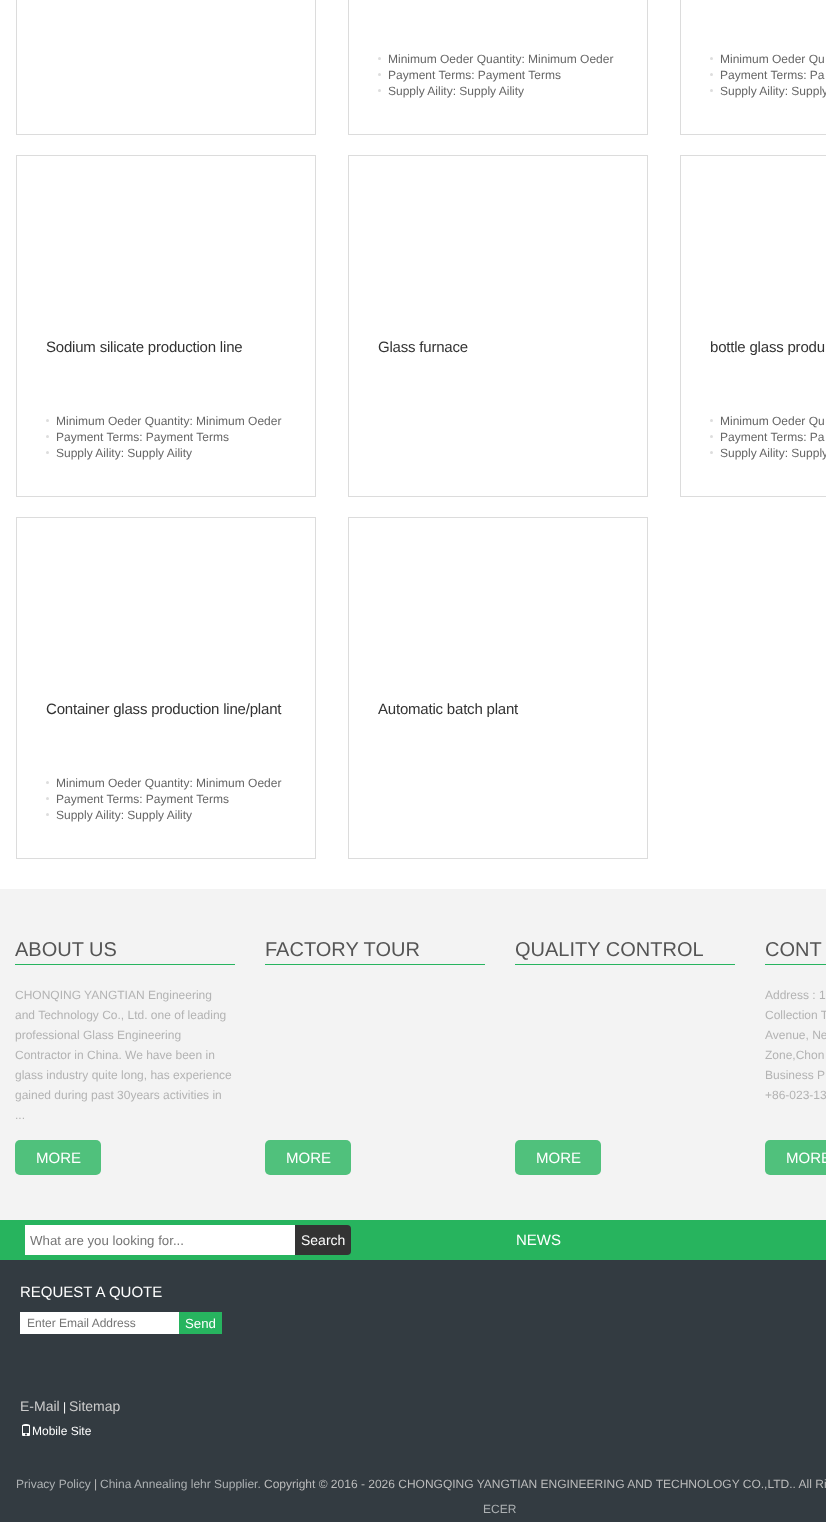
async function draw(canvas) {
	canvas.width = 826;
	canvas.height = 1522;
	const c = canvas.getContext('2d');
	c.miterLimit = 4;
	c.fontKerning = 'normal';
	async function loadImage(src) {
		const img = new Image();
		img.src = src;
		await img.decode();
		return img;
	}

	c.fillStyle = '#fff';
	c.fillRect(0, 0, 826, 1522);
	c.strokeStyle = '#dcdcdc';
	c.strokeRect(16.5, -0.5, 299, 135);
	c.strokeRect(348.5, -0.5, 299, 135);
	c.fillStyle = '#ddd';
	c.beginPath();
	c.arc(379.5, 58.5, 1.5, 0, 2 * Math.PI);
	c.fill();
	c.font = '12px Liberation Sans';
	c.fillStyle = '#666';
	c.fillText('Minimum Oeder Quantity: Minimum Oeder', 388, 63);
	c.fillStyle = '#ddd';
	c.beginPath();
	c.arc(379.5, 74.5, 1.5, 0, 2 * Math.PI);
	c.fill();
	c.fillStyle = '#666';
	c.fillText('Payment Terms: Payment Terms', 388, 79);
	c.fillStyle = '#ddd';
	c.beginPath();
	c.arc(379.5, 90.5, 1.5, 0, 2 * Math.PI);
	c.fill();
	c.fillStyle = '#666';
	c.fillText('Supply Aility: Supply Aility', 388, 95);
	c.strokeRect(680.5, -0.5, 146, 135);
	c.fillStyle = '#ddd';
	c.beginPath();
	c.arc(711.5, 58.5, 1.5, 0, 2 * Math.PI);
	c.fill();
	c.fillStyle = '#666';
	c.fillText('Minimum Oeder Qu', 720, 63);
	c.fillStyle = '#ddd';
	c.beginPath();
	c.arc(711.5, 74.5, 1.5, 0, 2 * Math.PI);
	c.fill();
	c.fillStyle = '#666';
	c.fillText('Payment Terms: Pa', 720, 79);
	c.fillStyle = '#ddd';
	c.beginPath();
	c.arc(711.5, 90.5, 1.5, 0, 2 * Math.PI);
	c.fill();
	c.fillStyle = '#666';
	c.fillText('Supply Aility: Supply', 720, 95);
	c.strokeRect(16.5, 155.5, 299, 341);
	c.letterSpacing = '-0.2px';
	c.font = '15px Liberation Sans';
	c.fillStyle = '#333';
	c.fillText('Sodium silicate production line', 46, 352);
	c.fillStyle = '#ddd';
	c.beginPath();
	c.arc(47.5, 420.5, 1.5, 0, 2 * Math.PI);
	c.fill();
	c.letterSpacing = '0px';
	c.font = '12px Liberation Sans';
	c.fillStyle = '#666';
	c.fillText('Minimum Oeder Quantity: Minimum Oeder', 56, 425);
	c.fillStyle = '#ddd';
	c.beginPath();
	c.arc(47.5, 436.5, 1.5, 0, 2 * Math.PI);
	c.fill();
	c.fillStyle = '#666';
	c.fillText('Payment Terms: Payment Terms', 56, 441);
	c.fillStyle = '#ddd';
	c.beginPath();
	c.arc(47.5, 452.5, 1.5, 0, 2 * Math.PI);
	c.fill();
	c.fillStyle = '#666';
	c.fillText('Supply Aility: Supply Aility', 56, 457);
	c.strokeRect(348.5, 155.5, 299, 341);
	c.letterSpacing = '-0.2px';
	c.font = '15px Liberation Sans';
	c.fillStyle = '#333';
	c.fillText('Glass furnace', 378, 352);
	c.strokeRect(680.5, 155.5, 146, 341);
	c.fillText('bottle glass produ', 710, 352);
	c.fillStyle = '#ddd';
	c.beginPath();
	c.arc(711.5, 420.5, 1.5, 0, 2 * Math.PI);
	c.fill();
	c.letterSpacing = '0px';
	c.font = '12px Liberation Sans';
	c.fillStyle = '#666';
	c.fillText('Minimum Oeder Qu', 720, 425);
	c.fillStyle = '#ddd';
	c.beginPath();
	c.arc(711.5, 436.5, 1.5, 0, 2 * Math.PI);
	c.fill();
	c.fillStyle = '#666';
	c.fillText('Payment Terms: Pa', 720, 441);
	c.fillStyle = '#ddd';
	c.beginPath();
	c.arc(711.5, 452.5, 1.5, 0, 2 * Math.PI);
	c.fill();
	c.fillStyle = '#666';
	c.fillText('Supply Aility: Supply', 720, 457);
	c.strokeRect(16.5, 517.5, 299, 341);
	c.letterSpacing = '-0.2px';
	c.font = '15px Liberation Sans';
	c.fillStyle = '#333';
	c.fillText('Container glass production line/plant', 46, 714);
	c.fillStyle = '#ddd';
	c.beginPath();
	c.arc(47.5, 782.5, 1.5, 0, 2 * Math.PI);
	c.fill();
	c.letterSpacing = '0px';
	c.font = '12px Liberation Sans';
	c.fillStyle = '#666';
	c.fillText('Minimum Oeder Quantity: Minimum Oeder', 56, 787);
	c.fillStyle = '#ddd';
	c.beginPath();
	c.arc(47.5, 798.5, 1.5, 0, 2 * Math.PI);
	c.fill();
	c.fillStyle = '#666';
	c.fillText('Payment Terms: Payment Terms', 56, 803);
	c.fillStyle = '#ddd';
	c.beginPath();
	c.arc(47.5, 814.5, 1.5, 0, 2 * Math.PI);
	c.fill();
	c.fillStyle = '#666';
	c.fillText('Supply Aility: Supply Aility', 56, 819);
	c.strokeRect(348.5, 517.5, 299, 341);
	c.letterSpacing = '-0.2px';
	c.font = '15px Liberation Sans';
	c.fillStyle = '#333';
	c.fillText('Automatic batch plant', 378, 714);
	c.fillStyle = '#f3f3f3';
	c.fillRect(0, 889, 826, 331);
	c.fillStyle = '#27b45f';
	c.fillRect(15, 964, 220, 1);
	c.letterSpacing = '0px';
	c.font = '20px Liberation Sans';
	c.fillStyle = '#555';
	c.fillText('ABOUT US', 15, 956);
	c.font = '12px Liberation Sans';
	c.fillStyle = '#b3b3b3';
	for (const [text, x, y] of [
		['CHONQING YANGTIAN Engineering', 15, 999],
		['and Technology Co., Ltd. one of leading', 15, 1019],
		['professional Glass Engineering', 15, 1039],
		['Contractor in China. We have been in', 15, 1059],
		['glass industry quite long, has experience', 15, 1079],
		['gained during past 30years activities in', 15, 1099],
		['...', 15, 1119],
	]) {
		c.fillText(text, x, y);
	}
	c.fillStyle = '#50c17c';
	c.beginPath();
	c.roundRect(15, 1140, 86, 35, 5);
	c.fill();
	c.font = '15px Liberation Sans';
	c.fillStyle = '#fff';
	c.fillText('MORE', 36, 1163);
	c.fillStyle = '#27b45f';
	c.fillRect(265, 964, 220, 1);
	c.font = '20px Liberation Sans';
	c.fillStyle = '#555';
	c.fillText('FACTORY TOUR', 265, 956);
	c.fillStyle = '#50c17c';
	c.beginPath();
	c.roundRect(265, 1140, 86, 35, 5);
	c.fill();
	c.font = '15px Liberation Sans';
	c.fillStyle = '#fff';
	c.fillText('MORE', 286, 1163);
	c.fillStyle = '#27b45f';
	c.fillRect(515, 964, 220, 1);
	c.font = '20px Liberation Sans';
	c.fillStyle = '#555';
	c.fillText('QUALITY CONTROL', 515, 956);
	c.fillStyle = '#50c17c';
	c.beginPath();
	c.roundRect(515, 1140, 86, 35, 5);
	c.fill();
	c.font = '15px Liberation Sans';
	c.fillStyle = '#fff';
	c.fillText('MORE', 536, 1163);
	c.fillStyle = '#27b45f';
	c.fillRect(765, 964, 61, 1);
	c.font = '20px Liberation Sans';
	c.fillStyle = '#555';
	c.fillText('CONT', 765, 956);
	c.font = '12px Liberation Sans';
	c.fillStyle = '#b3b3b3';
	for (const [text, x, y] of [
		['Address : 1', 765, 999],
		['Collection T', 765, 1019],
		['Avenue, Ne', 765, 1039],
		['Zone,Chon', 765, 1059],
		['Business P', 765, 1079],
		['+86-023-13', 765, 1099],
	]) {
		c.fillText(text, x, y);
	}
	c.fillStyle = '#50c17c';
	c.beginPath();
	c.roundRect(765, 1140, 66, 35, 5);
	c.fill();
	c.font = '15px Liberation Sans';
	c.fillStyle = '#fff';
	c.fillText('MORE', 786, 1163);
	c.fillStyle = '#27b45e';
	c.fillRect(0, 1220, 826, 40);
	c.fillStyle = '#fff';
	c.fillRect(25, 1225, 270, 30);
	c.font = '13.25px Liberation Sans';
	c.fillStyle = '#757575';
	c.fillText('What are you looking for...', 30, 1245);
	c.fillStyle = '#333';
	c.beginPath();
	c.roundRect(295, 1225, 56, 30, [0, 4, 4, 0]);
	c.fill();
	c.font = '14px Liberation Sans';
	c.fillStyle = '#fff';
	c.fillText('Search', 301, 1245);
	c.font = '15px Liberation Sans';
	c.fillText('NEWS', 516, 1245);
	c.fillStyle = '#333b41';
	c.fillRect(0, 1260, 826, 262);
	c.fillStyle = '#fff';
	c.fillText('REQUEST A QUOTE', 20, 1297);
	c.fillRect(20, 1312, 159, 22);
	c.font = '12px Liberation Sans';
	c.fillStyle = '#757575';
	c.fillText('Enter Email Address', 27, 1327);
	c.fillStyle = '#27b45f';
	c.fillRect(179, 1312, 43, 22);
	c.font = '13.25px Liberation Sans';
	c.fillStyle = '#fff';
	c.fillText('Send', 185, 1328);
	c.font = '14px Liberation Sans';
	c.fillStyle = '#ccc';
	c.fillText('E-Mail', 20, 1411);
	c.font = '12px Liberation Sans';
	c.fillStyle = '#fff';
	c.fillText('|', 63, 1411);
	c.font = '14px Liberation Sans';
	c.fillStyle = '#ccc';
	c.fillText('Sitemap', 69, 1411);
	c.drawImage(await loadImage('img1.png'), 22, 1424, 8, 12);
	c.font = '12px Liberation Sans';
	c.fillStyle = '#fff';
	c.fillText('Mobile Site', 32, 1435);
	c.fillStyle = '#adb1b3';
	c.fillText('Privacy Policy', 16, 1488);
	c.fillStyle = '#bbb';
	c.fillText('|', 94, 1488);
	c.fillStyle = '#adb1b3';
	c.fillText('China Annealing lehr Supplier.', 100, 1488);
	c.fillStyle = '#bbb';
	c.fillText('Copyright © 2016 - 2026 CHONGQING YANGTIAN ENGINEERING AND TECHNOLOGY CO.,LTD.. All Ri', 264, 1488);
	c.fillStyle = '#adb1b3';
	c.fillText('ECER', 483, 1513);
}

draw(document.querySelector('canvas'));
